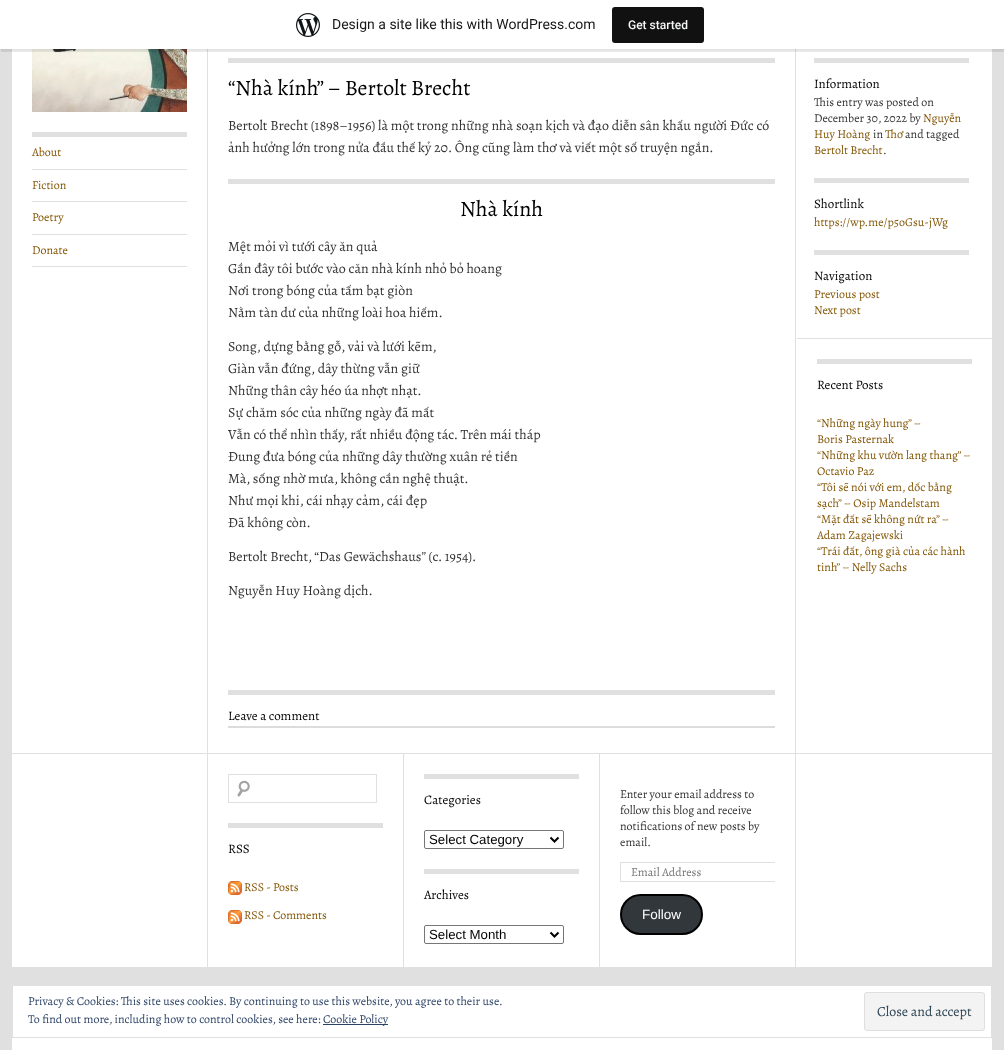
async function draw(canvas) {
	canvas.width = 1004;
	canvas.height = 1050;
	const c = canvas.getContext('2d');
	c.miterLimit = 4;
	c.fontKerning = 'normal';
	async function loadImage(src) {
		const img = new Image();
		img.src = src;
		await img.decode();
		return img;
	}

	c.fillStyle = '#e0e0e0';
	c.fillRect(0, 0, 1004, 1050);
	c.fillStyle = '#fff';
	c.fillRect(12, 49, 980, 918);
	c.drawImage(await loadImage('img2.png'), 32, 49, 155, 63);
	c.fillStyle = '#e0e0e0';
	c.fillRect(795, 49, 1, 704);
	c.fillRect(207, 49, 1, 704);
	c.fillStyle = '#0000000d';
	c.filter = 'blur(1px)';
	c.beginPath();
	c.rect(0, 1, 1004, 49);
	c.fill();
	c.filter = 'none';
	c.fillStyle = '#00000014';
	c.beginPath();
	c.moveTo(1, 49);
	c.lineTo(1, 52);
	c.lineTo(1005, 52);
	c.lineTo(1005, 3);
	c.lineTo(1004, 3);
	c.lineTo(1004, 49);
	c.closePath();
	c.fill();
	c.fillStyle = '#fff';
	c.fillRect(0, 0, 1004, 49);
	c.drawImage(await loadImage('img1.png'), 296, 13, 24, 24);
	c.font = '14px Roboto';
	c.fillStyle = '#171717';
	c.fillText('Design a site like this with WordPress.com', 332, 29);
	c.fillStyle = '#111';
	c.beginPath();
	c.roundRect(612, 7, 92, 36, 3);
	c.fill();
	c.font = '500 12px Roboto';
	c.fillStyle = '#f6f7f7';
	c.fillText('Get started', 628, 29);
	c.fillStyle = '#e0e0e0';
	c.fillRect(32, 132, 155, 5);
	c.fillRect(32, 169, 155, 1);
	c.font = '12px Alegreya';
	c.fillStyle = '#835504';
	c.fillText('About', 32, 156);
	c.fillStyle = '#e0e0e0';
	c.fillRect(32, 201, 155, 1);
	c.fillStyle = '#835504';
	c.fillText('Fiction', 32, 189);
	c.fillStyle = '#e0e0e0';
	c.fillRect(32, 234, 155, 1);
	c.fillStyle = '#835504';
	c.fillText('Poetry', 32, 221);
	c.fillStyle = '#e0e0e0';
	c.fillRect(32, 266, 155, 1);
	c.fillStyle = '#835504';
	c.fillText('Donate', 32, 254);
	c.fillStyle = '#e0e0e0';
	c.fillRect(228, 58, 547, 5);
	c.font = '22px Alegreya';
	c.fillStyle = '#000';
	c.fillText('“Nhà kính” – Bertolt Brecht', 228, 95);
	c.font = '14px Alegreya';
	c.fillStyle = '#333';
	c.fillText('Bertolt Brecht (1898–1956) là một trong những nhà soạn kịch và đạo diễn sân khấu người Đức có', 228, 130);
	c.fillText('ảnh hưởng lớn trong nửa đầu thế kỷ 20. Ông cũng làm thơ và viết một số truyện ngắn.', 228, 152);
	c.fillStyle = '#e0e0e0';
	c.fillRect(228, 179, 547, 5);
	c.font = '22px Alegreya';
	c.fillStyle = '#000';
	c.fillText('Nhà kính', 460, 216);
	c.font = '14px Alegreya';
	c.fillStyle = '#333';
	for (const [text, x, y] of [
		['Mệt mỏi vì tưới cây ăn quả', 228, 251],
		['Gần đây tôi bước vào căn nhà kính nhỏ bỏ hoang', 228, 273],
		['Nơi trong bóng của tấm bạt giòn', 228, 295],
		['Nằm tàn dư của những loài hoa hiếm.', 228, 317],
		['Song, dựng bằng gỗ, vải và lưới kẽm,', 228, 351],
		['Giàn vẫn đứng, dây thừng vẫn giữ', 228, 373],
		['Những thân cây héo úa nhợt nhạt.', 228, 395],
		['Sự chăm sóc của những ngày đã mất', 228, 417],
		['Vẫn có thể nhìn thấy, rất nhiều động tác. Trên mái tháp', 228, 439],
		['Đung đưa bóng của những dây thường xuân rẻ tiền', 228, 461],
		['Mà, sống nhờ mưa, không cần nghệ thuật.', 228, 483],
		['Như mọi khi, cái nhạy cảm, cái đẹp', 228, 505],
		['Đã không còn.', 228, 527],
		['Bertolt Brecht, “Das Gewächshaus” (c. 1954).', 228, 561],
		['Nguyễn Huy Hoàng dịch.', 228, 595],
	]) {
		c.fillText(text, x, y);
	}
	c.fillStyle = '#e0e0e0';
	c.fillRect(228, 690, 547, 5);
	c.font = '13px Alegreya';
	c.fillStyle = '#000';
	c.fillText('Leave a comment', 228, 720);
	c.fillStyle = '#dcdcde';
	c.fillRect(228, 726, 547, 2);
	c.fillStyle = '#e0e0e0';
	c.fillRect(814, 58, 155, 5);
	c.fillStyle = '#000';
	c.fillText('Information', 814, 88);
	c.font = '12px Alegreya';
	c.fillStyle = '#333';
	c.fillText('This entry was posted on', 814, 106);
	c.fillText('December 30, 2022 by', 814, 122);
	c.fillStyle = '#835504';
	c.fillText('Nguyễn', 923, 122);
	c.fillText('Huy Hoàng', 814, 138);
	c.fillStyle = '#333';
	c.fillText('in', 873, 138);
	c.fillStyle = '#835504';
	c.fillText('Thơ', 885, 138);
	c.fillStyle = '#333';
	c.fillText('and tagged', 905, 138);
	c.fillStyle = '#835504';
	c.fillText('Bertolt Brecht', 814, 154);
	c.fillStyle = '#333';
	c.fillText('.', 883, 154);
	c.fillStyle = '#e0e0e0';
	c.fillRect(814, 178, 155, 5);
	c.font = '13px Alegreya';
	c.fillStyle = '#000';
	c.fillText('Shortlink', 814, 208);
	c.font = '12px Alegreya';
	c.fillStyle = '#835504';
	c.fillText('https://wp.me/p5oGsu-jWg', 814, 226);
	c.fillStyle = '#e0e0e0';
	c.fillRect(814, 250, 155, 5);
	c.font = '13px Alegreya';
	c.fillStyle = '#000';
	c.fillText('Navigation', 814, 280);
	c.font = '12px Alegreya';
	c.fillStyle = '#835504';
	c.fillText('Previous post', 814, 298);
	c.fillText('Next post', 814, 314);
	c.fillStyle = '#e0e0e0';
	c.fillRect(797, 338, 195, 1);
	c.fillRect(817, 359, 155, 5);
	c.font = '13px Alegreya';
	c.fillStyle = '#000';
	c.fillText('Recent Posts', 817, 389);
	c.font = '12px Alegreya';
	c.fillStyle = '#835504';
	for (const [text, x, y] of [
		['“Những ngày hung” –', 817, 427],
		['Boris Pasternak', 817, 443],
		['“Những khu vườn lang thang” –', 817, 459],
		['Octavio Paz', 817, 475],
		['“Tôi sẽ nói với em, dốc bằng', 817, 491],
		['sạch” – Osip Mandelstam', 817, 507],
		['“Mặt đất sẽ không nứt ra” –', 817, 523],
		['Adam Zagajewski', 817, 539],
		['“Trái đất, ông già của các hành', 817, 555],
		['tinh” – Nelly Sachs', 817, 571],
	]) {
		c.fillText(text, x, y);
	}
	for (const [x, y, w, h, color] of [
		[12, 753, 980, 1, '#e0e0e0'],
		[207, 754, 1, 213, '#e0e0e0'],
		[403, 754, 1, 213, '#e0e0e0'],
	]) {
		c.fillStyle = color;
		c.fillRect(x, y, w, h);
	}
	c.drawImage(await loadImage('img3.png'), 237, 780, 13, 17);
	c.strokeStyle = '#e0e0e0';
	c.strokeRect(228.5, 774.5, 148, 28);
	c.fillRect(228, 823, 155, 5);
	c.font = '13px Alegreya';
	c.fillStyle = '#000';
	c.fillText('RSS', 228, 853);
	c.drawImage(await loadImage('img4.png'), 228, 881, 14, 14);
	c.font = '12px Alegreya';
	c.fillStyle = '#835504';
	c.fillText('RSS - Posts', 244, 891);
	c.drawImage(await loadImage('img4.png'), 228, 910, 14, 14);
	c.fillText('RSS - Comments', 244, 919);
	c.fillStyle = '#e0e0e0';
	c.fillRect(599, 754, 1, 213);
	c.fillRect(424, 774, 155, 5);
	c.font = '13px Alegreya';
	c.fillStyle = '#000';
	c.fillText('Categories', 424, 804);
	c.beginPath();
	c.roundRect(424.5, 830.5, 139, 18, 1.5);
	c.strokeStyle = '#767676';
	c.stroke();
	c.beginPath();
	c.moveTo(550.5, 837.5);
	c.lineTo(554.5, 841.5);
	c.lineTo(558.5, 837.5);
	c.strokeStyle = '#000';
	c.lineWidth = 2;
	c.stroke();
	c.font = '13.25px Liberation Sans';
	c.fillText('Select Category', 429, 844);
	c.fillStyle = '#e0e0e0';
	c.fillRect(424, 869, 155, 5);
	c.font = '13px Alegreya';
	c.fillStyle = '#000';
	c.fillText('Archives', 424, 899);
	c.beginPath();
	c.roundRect(424.5, 925.5, 139, 18, 1.5);
	c.strokeStyle = '#767676';
	c.lineWidth = 1;
	c.stroke();
	c.beginPath();
	c.moveTo(550.5, 932.5);
	c.lineTo(554.5, 936.5);
	c.lineTo(558.5, 932.5);
	c.strokeStyle = '#000';
	c.lineWidth = 2;
	c.stroke();
	c.font = '13.25px Liberation Sans';
	c.fillText('Select Month', 429, 939);
	c.fillStyle = '#e0e0e0';
	c.fillRect(795, 754, 1, 213);
	c.font = '12px Alegreya';
	c.fillStyle = '#333';
	for (const [text, x, y] of [
		['Enter your email address to', 620, 798],
		['follow this blog and receive', 620, 814],
		['notifications of new posts by', 620, 830],
		['email.', 620, 846],
	]) {
		c.fillText(text, x, y);
	}
	c.save();
	c.beginPath();
	c.rect(620, 774, 155, 173);
	c.clip();
	c.strokeStyle = '#e0e0e0';
	c.lineWidth = 1;
	c.strokeRect(620.5, 862.5, 168, 19);
	c.restore();
	c.fillStyle = '#757575';
	c.fillText('Email Address', 631, 876);
	c.fillStyle = '#32373c';
	c.beginPath();
	c.roundRect(621, 895, 81, 39, 19.5);
	c.fill();
	c.stroke();
	c.font = '13.5px Liberation Sans';
	c.fillStyle = '#fff';
	c.fillText('Follow', 642, 919);
	c.fillRect(12, 1038, 980, 12);
	c.fillRect(13, 986, 978, 51);
	c.font = '12px Alegreya';
	c.fillStyle = '#2e4467';
	c.fillText('Privacy & Cookies: This site uses cookies. By continuing to use this website, you agree to their use.', 28, 1005);
	c.fillText('To find out more, including how to control cookies, see here:', 28, 1023);
	c.fillRect(323, 1024, 65, 1);
	c.fillText('Cookie Policy', 323, 1023);
	c.fillStyle = '#f3f3f3';
	c.beginPath();
	c.roundRect(864.5, 992.5, 120, 38, 2.5);
	c.fill();
	c.strokeStyle = '#dedede';
	c.lineWidth = 1;
	c.stroke();
	c.font = '14px Alegreya';
	c.fillStyle = '#2e4453';
	c.fillText('Close and accept', 877, 1016);
}

draw(document.querySelector('canvas'));
